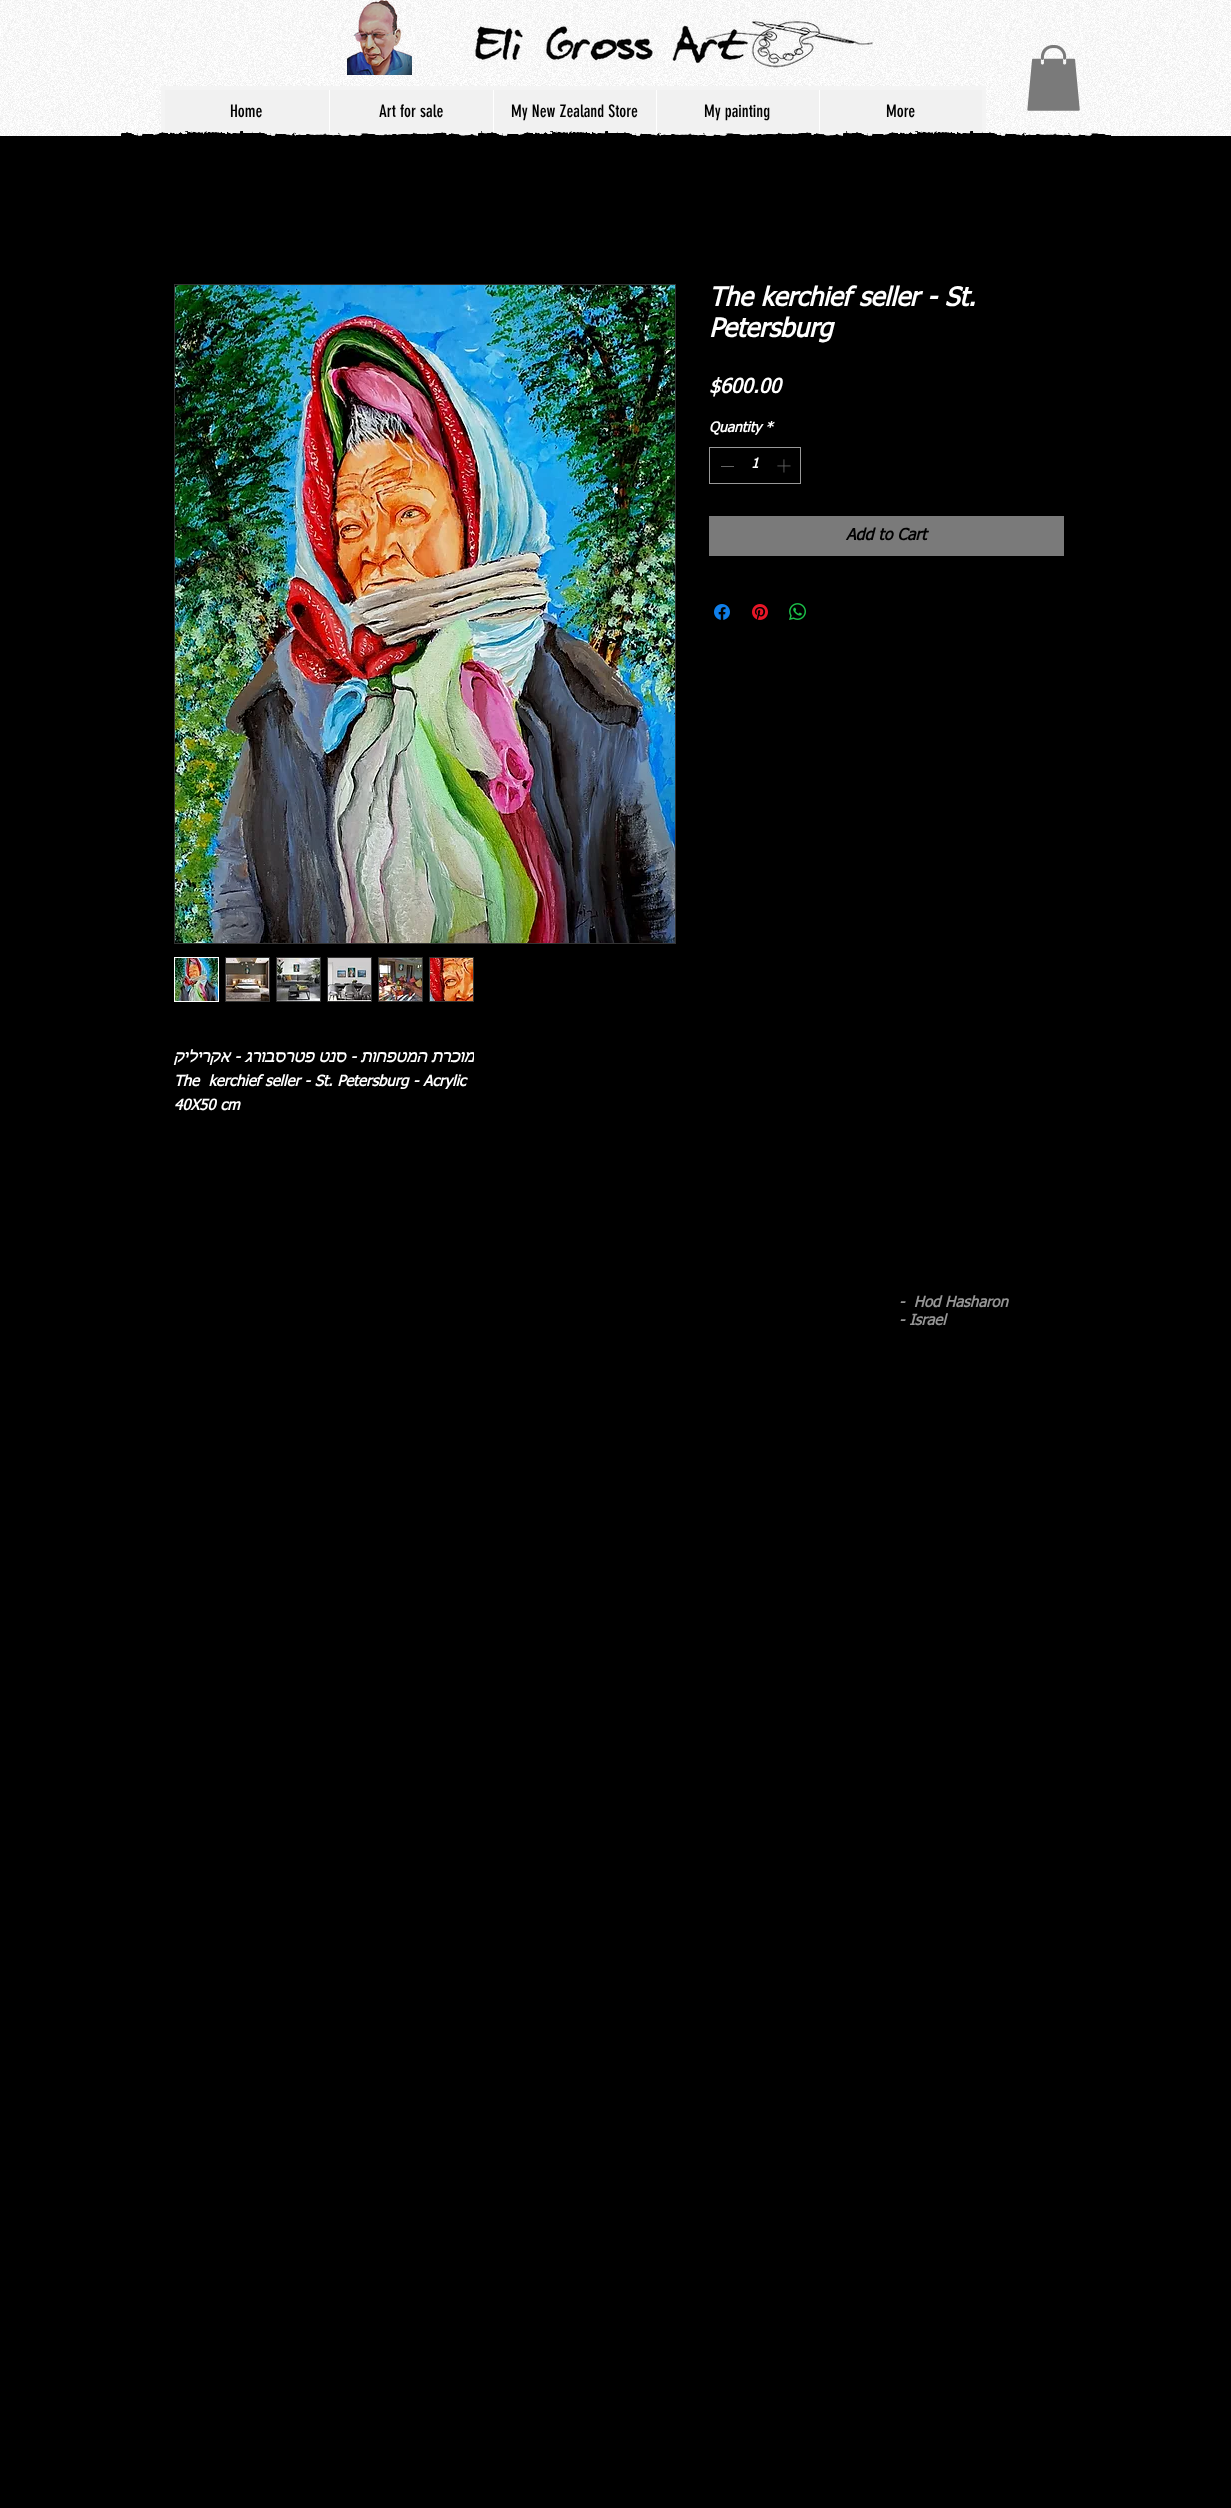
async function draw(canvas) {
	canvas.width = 1231;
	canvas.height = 2508;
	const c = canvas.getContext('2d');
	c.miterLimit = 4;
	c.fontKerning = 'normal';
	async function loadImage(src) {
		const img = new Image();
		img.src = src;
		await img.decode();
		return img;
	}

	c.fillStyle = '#000';
	c.fillRect(0, 0, 1231, 2508);
	c.fillStyle = '#fff';
	c.fillRect(0, 0, 1231, 136);
	c.drawImage(await loadImage('img1.png'), 0, 0, 1231, 136);
	c.drawImage(await loadImage('img2.png'), 347, 0, 65, 75);
	c.drawImage(await loadImage('img3.png'), 473, 19, 400, 49);
	c.drawImage(await loadImage('img4.png'), 1027, 45, 53, 66);
	c.fillStyle = '#f1f1f1';
	c.beginPath();
	c.rect(163, 88, 821, 46);
	c.fill();
	c.strokeStyle = '#f4f4f4';
	c.lineWidth = 4;
	c.stroke();
	c.font = '17px "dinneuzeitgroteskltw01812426"';
	c.fillStyle = '#000';
	c.fillText('Home', 230, 117);
	c.fillStyle = '#fff';
	c.fillRect(329, 90, 1, 42);
	c.fillStyle = '#000';
	c.fillText('Art for sale', 379, 117);
	c.fillStyle = '#fff';
	c.fillRect(493, 90, 1, 42);
	c.fillStyle = '#000';
	c.fillText('My New Zealand Store', 511, 117);
	c.fillStyle = '#fff';
	c.fillRect(656, 90, 1, 42);
	c.fillStyle = '#000';
	c.fillText('My painting', 704, 117);
	c.fillStyle = '#fff';
	c.fillRect(819, 90, 1, 42);
	c.fillStyle = '#000';
	c.fillText('More', 886, 117);
	c.drawImage(await loadImage('img5.png'), 121, 131, 990, 5);
	c.font = 'italic bold 26px tahoma';
	c.fillStyle = '#fff';
	c.fillText('The kerchief seller - St.', 709, 306);
	c.fillText('Petersburg', 709, 337);
	c.font = 'italic bold 20px tahoma';
	c.fillText('$600.00', 709, 393);
	c.font = 'italic bold 14px tahoma';
	c.fillText('Quantity', 709, 432);
	c.fillText('*', 765, 432);
	c.strokeStyle = '#999';
	c.lineWidth = 1;
	c.strokeRect(709.5, 447.5, 91, 36);
	c.fillStyle = '#646464';
	c.fillRect(721, 466, 13, 1);
	c.fillStyle = '#fff';
	c.fillText('1', 751, 468);
	c.drawImage(await loadImage('img6.png'), 777, 459, 14, 14);
	c.fillStyle = '#7a7a7a';
	c.fillRect(709, 516, 355, 40);
	c.font = 'italic bold 16px tahoma';
	c.fillStyle = '#000';
	c.fillText('Add to Cart', 846, 540);
	c.drawImage(await loadImage('img7.png'), 714, 604, 16, 16);
	c.drawImage(await loadImage('img8.png'), 752, 604, 16, 16);
	c.drawImage(await loadImage('img9.png'), 789, 603, 17, 17);
	c.strokeStyle = '#333';
	c.strokeRect(174.5, 284.5, 501, 659);
	c.drawImage(await loadImage('img10.png'), 175, 285, 500, 658);
	c.strokeStyle = '#fff';
	c.strokeRect(174.5, 957.5, 44, 44);
	c.drawImage(await loadImage('img11.png'), 175, 958, 43, 43);
	c.fillStyle = '#333';
	c.fillRect(225, 957, 45, 45);
	c.drawImage(await loadImage('img12.png'), 226, 958, 43, 43);
	c.fillRect(276, 957, 45, 45);
	c.drawImage(await loadImage('img13.png'), 277, 958, 43, 43);
	c.fillRect(327, 957, 45, 45);
	c.drawImage(await loadImage('img14.png'), 328, 958, 43, 43);
	c.fillRect(378, 957, 45, 45);
	c.drawImage(await loadImage('img15.png'), 379, 958, 43, 43);
	c.fillRect(429, 957, 45, 45);
	c.drawImage(await loadImage('img16.png'), 430, 958, 43, 43);
	c.direction = 'rtl';
	c.font = 'italic bold 15px "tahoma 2"';
	c.fillStyle = '#fff';
	c.fillText('- אקריליק', 240, 1062);
	c.save();
	c.beginPath();
	c.rect(174, 1022, 300, 96);
	c.clip();
	c.fillText('מוכרת המטפחות - סנט פטרסבורג', 474, 1062);
	c.restore();
	c.direction = 'ltr';
	c.font = 'italic bold 15px tahoma';
	c.fillText('The  kerchief seller - St. Petersburg - Acrylic', 174, 1086);
	c.fillText('40X50 cm', 174, 1110);
	c.fillStyle = '#959595';
	c.fillText('-  Hod Hasharon', 899, 1307);
	c.fillText('- Israel', 899, 1325);
}

draw(document.querySelector('canvas'));
